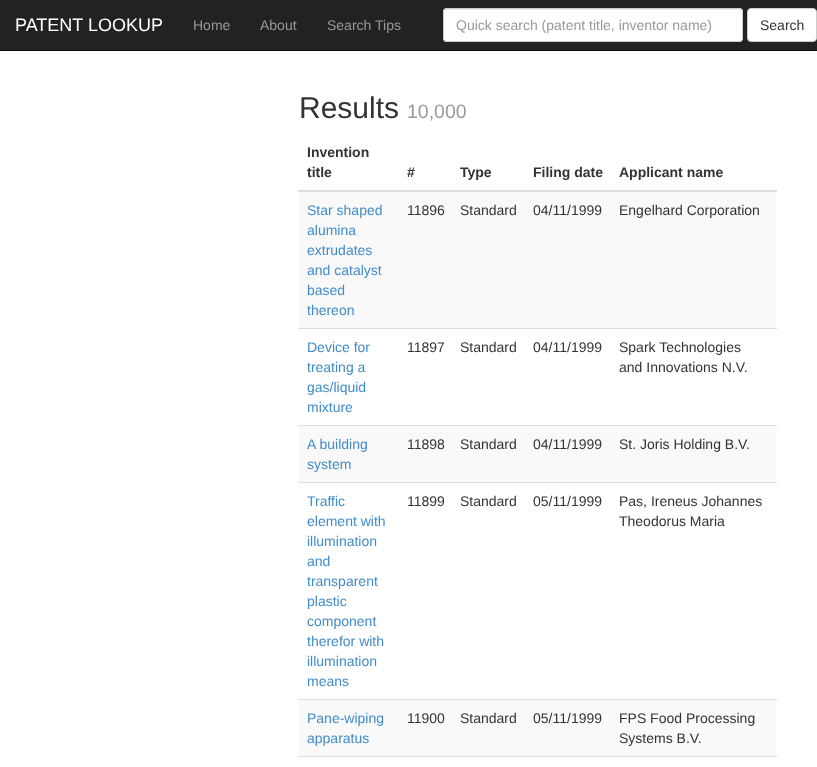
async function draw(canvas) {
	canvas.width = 817;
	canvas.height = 767;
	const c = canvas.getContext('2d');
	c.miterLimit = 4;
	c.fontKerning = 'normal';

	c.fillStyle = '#fff';
	c.fillRect(0, 0, 817, 767);
	c.fillStyle = '#222';
	c.fillRect(0, 0, 817, 50);
	c.fillStyle = '#080808';
	c.fillRect(0, 50, 817, 1);
	c.font = '18px Liberation Sans';
	c.fillStyle = '#fff';
	c.fillText('PATENT LOOKUP', 15, 31);
	c.font = '14px Liberation Sans';
	c.fillStyle = '#999';
	for (const [text, x, y] of [
		['Home', 193, 30],
		['About', 260, 30],
		['Search Tips', 327, 30],
	]) {
		c.fillText(text, x, y);
	}
	c.fillStyle = '#fff';
	c.beginPath();
	c.roundRect(443, 8, 300, 34, 4);
	c.fill();
	c.fillStyle = '#ececec';
	c.beginPath();
	c.moveTo(447, 10);
	c.lineTo(739, 10);
	c.bezierCurveTo(741, 10, 742, 11, 742, 13);
	c.lineTo(741, 10);
	c.lineTo(740, 9);
	c.lineTo(447, 9);
	c.bezierCurveTo(445, 9, 444, 11, 444, 13);
	c.bezierCurveTo(444, 11, 445, 10, 447, 10);
	c.closePath();
	c.fill();
	c.beginPath();
	c.roundRect(443.5, 8.5, 299, 33, 3.5);
	c.strokeStyle = '#ccc';
	c.stroke();
	c.fillStyle = '#999';
	c.fillText('Quick search (patent title, inventor name)', 456, 30);
	c.fillStyle = '#fff';
	c.beginPath();
	c.roundRect(747.5, 8.5, 69, 33, 3.5);
	c.fill();
	c.stroke();
	c.fillStyle = '#333';
	c.fillText('Search', 760, 30);
	c.font = '30px Liberation Sans';
	c.fillText('Results', 299, 118);
	c.font = '19.5px Liberation Sans';
	c.fillStyle = '#999';
	c.fillText('10,000', 407, 118);
	c.font = 'bold 14px Liberation Sans';
	c.fillStyle = '#333';
	for (const [text, x, y] of [
		['Invention', 307, 157],
		['title', 307, 177],
		['#', 407, 177],
		['Type', 460, 177],
		['Filing date', 533, 177],
	]) {
		c.fillText(text, x, y);
	}
	c.fillStyle = '#ddd';
	c.fillRect(298, 190, 479, 2);
	c.fillStyle = '#333';
	c.fillText('Applicant name', 619, 177);
	c.fillStyle = '#f9f9f9';
	c.fillRect(299, 192, 477, 136);
	c.font = '14px Liberation Sans';
	c.fillStyle = '#428bca';
	for (const [text, x, y] of [
		['Star shaped', 307, 215],
		['alumina', 307, 235],
		['extrudates', 307, 255],
		['and catalyst', 307, 275],
		['based', 307, 295],
		['thereon', 307, 315],
	]) {
		c.fillText(text, x, y);
	}
	c.fillStyle = '#333';
	for (const [text, x, y] of [
		['11896', 407, 215],
		['Standard', 460, 215],
		['04/11/1999', 533, 215],
		['Engelhard Corporation', 619, 215],
	]) {
		c.fillText(text, x, y);
	}
	c.fillStyle = '#428bca';
	for (const [text, x, y] of [
		['Device for', 307, 352],
		['treating a', 307, 372],
		['gas/liquid', 307, 392],
		['mixture', 307, 412],
	]) {
		c.fillText(text, x, y);
	}
	c.fillStyle = '#333';
	for (const [text, x, y] of [
		['11897', 407, 352],
		['Standard', 460, 352],
		['04/11/1999', 533, 352],
	]) {
		c.fillText(text, x, y);
	}
	c.fillStyle = '#ddd';
	c.fillRect(298, 328, 479, 1);
	c.fillStyle = '#333';
	c.fillText('Spark Technologies', 619, 352);
	c.fillText('and Innovations N.V.', 619, 372);
	c.fillStyle = '#f9f9f9';
	c.fillRect(299, 426, 477, 56);
	c.fillStyle = '#428bca';
	c.fillText('A building', 307, 449);
	c.fillText('system', 307, 469);
	c.fillStyle = '#333';
	for (const [text, x, y] of [
		['11898', 407, 449],
		['Standard', 460, 449],
		['04/11/1999', 533, 449],
	]) {
		c.fillText(text, x, y);
	}
	c.fillStyle = '#ddd';
	c.fillRect(298, 425, 479, 1);
	c.fillStyle = '#333';
	c.fillText('St. Joris Holding B.V.', 619, 449);
	c.fillStyle = '#428bca';
	for (const [text, x, y] of [
		['Traffic', 307, 506],
		['element with', 307, 526],
		['illumination', 307, 546],
		['and', 307, 566],
		['transparent', 307, 586],
		['plastic', 307, 606],
		['component', 307, 626],
		['therefor with', 307, 646],
		['illumination', 307, 666],
		['means', 307, 686],
	]) {
		c.fillText(text, x, y);
	}
	c.fillStyle = '#333';
	for (const [text, x, y] of [
		['11899', 407, 506],
		['Standard', 460, 506],
		['05/11/1999', 533, 506],
	]) {
		c.fillText(text, x, y);
	}
	c.fillStyle = '#ddd';
	c.fillRect(298, 482, 479, 1);
	c.fillStyle = '#333';
	c.fillText('Pas, Ireneus Johannes', 619, 506);
	c.fillText('Theodorus Maria', 619, 526);
	c.fillStyle = '#f9f9f9';
	c.fillRect(299, 700, 477, 56);
	c.fillStyle = '#428bca';
	c.fillText('Pane-wiping', 307, 723);
	c.fillText('apparatus', 307, 743);
	c.fillStyle = '#333';
	for (const [text, x, y] of [
		['11900', 407, 723],
		['Standard', 460, 723],
		['05/11/1999', 533, 723],
	]) {
		c.fillText(text, x, y);
	}
	c.fillStyle = '#ddd';
	c.fillRect(298, 699, 479, 1);
	c.fillStyle = '#333';
	c.fillText('FPS Food Processing', 619, 723);
	c.fillText('Systems B.V.', 619, 743);
	c.fillStyle = '#ddd';
	c.fillRect(298, 756, 479, 1);
}

draw(document.querySelector('canvas'));
